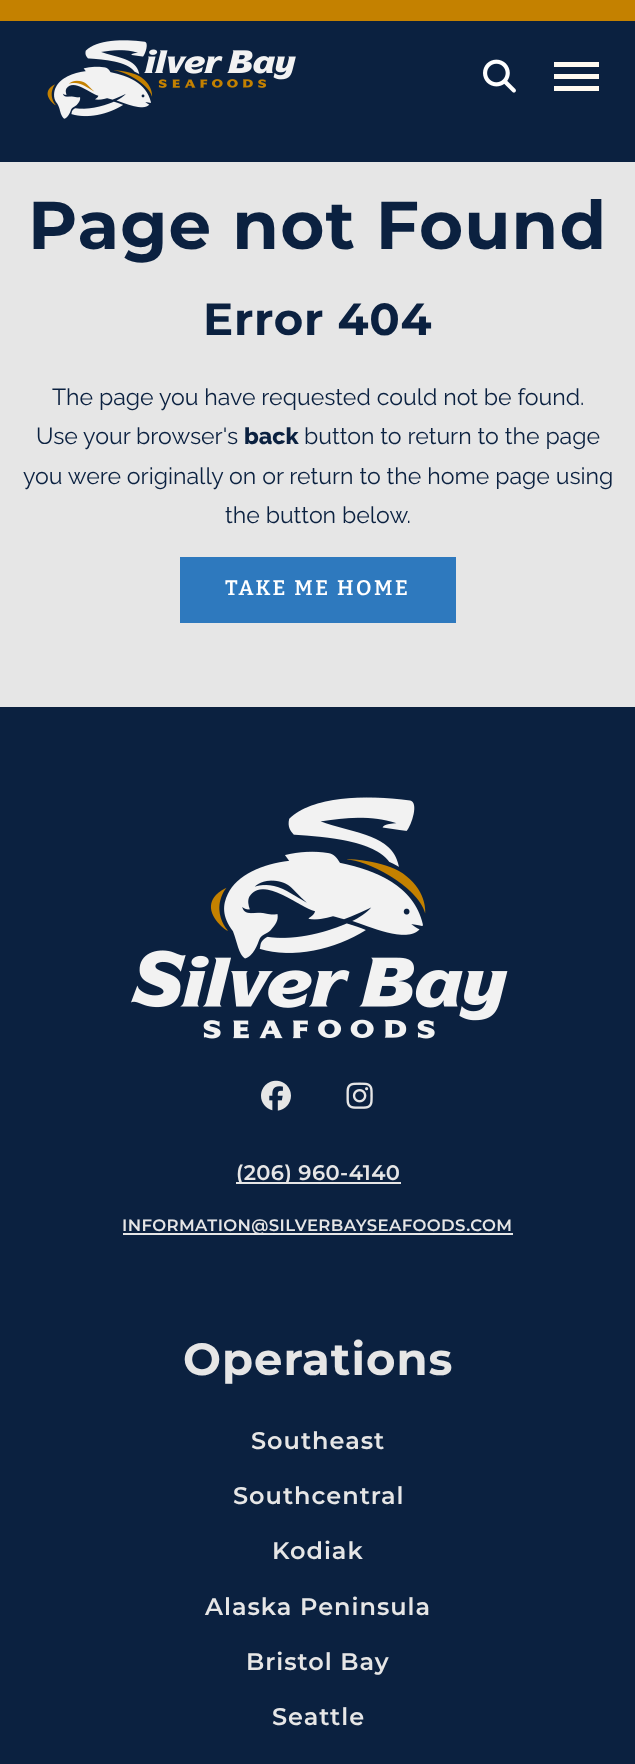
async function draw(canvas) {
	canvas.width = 635;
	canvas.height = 1764;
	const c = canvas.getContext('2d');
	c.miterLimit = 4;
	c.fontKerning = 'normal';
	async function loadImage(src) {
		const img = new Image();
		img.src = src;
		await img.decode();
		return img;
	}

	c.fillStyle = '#e6e6e6';
	c.fillRect(0, 0, 635, 1764);
	c.fillStyle = '#c48100';
	c.fillRect(0, 0, 635, 21);
	c.fillStyle = '#0b2140';
	c.fillRect(0, 21, 635, 141);
	c.drawImage(await loadImage('img1.png'), 47, 40, 249, 79);
	c.drawImage(await loadImage('img2.png'), 483, 59, 33, 34);
	for (const [x, y, w, h, color] of [
		[554, 74, 45, 5, '#fffaf1'],
		[554, 62, 45, 5, '#fffaf1'],
		[554, 86, 45, 5, '#fffaf1'],
	]) {
		c.fillStyle = color;
		c.fillRect(x, y, w, h);
	}
	c.letterSpacing = '1px';
	c.font = 'bold 67.5px Montserrat';
	c.fillStyle = '#0b2140';
	c.fillText('Page not Found', 28, 249);
	c.letterSpacing = '0.75px';
	c.font = 'bold 45px Montserrat';
	c.fillText('Error 404', 203, 335);
	c.letterSpacing = '0px';
	c.font = '23.1px Raleway';
	c.fillText('The page you have requested could not be found.', 52, 405);
	c.fillText('Use your browser\'s', 36, 444);
	c.font = '800 23.1px Raleway';
	c.fillText('back', 244, 444);
	c.font = '23.1px Raleway';
	for (const [text, x, y] of [
		['button to return to the page', 304, 444],
		['you were originally on or return to the home page using', 23, 484],
		['the button below.', 225, 523],
	]) {
		c.fillText(text, x, y);
	}
	c.fillStyle = '#2e79be';
	c.fillRect(180, 557, 276, 66);
	c.letterSpacing = '2.5px';
	c.font = '600 21px Bitter';
	c.fillStyle = '#fff';
	c.fillText('TAKE ME HOME', 225, 595);
	c.fillStyle = '#0b2140';
	c.fillRect(0, 707, 635, 1057);
	c.drawImage(await loadImage('img3.png'), 131, 797, 377, 242);
	c.drawImage(await loadImage('img4.png'), 261, 1080, 30, 31);
	c.drawImage(await loadImage('img5.png'), 346, 1082, 27, 27);
	c.fillStyle = '#e6e6e6';
	c.fillRect(236, 1182, 165, 2);
	c.letterSpacing = '0.4px';
	c.font = '600 21px Montserrat';
	c.fillText('(206) 960-4140', 236, 1180);
	c.fillRect(123, 1233, 390, 2);
	c.font = '600 16.5px Montserrat';
	c.fillText('INFORMATION@SILVERBAYSEAFOODS.COM', 122, 1231);
	c.letterSpacing = '1px';
	c.font = 'bold 45px Montserrat';
	c.fillText('Operations', 183, 1375);
	c.font = '600 24px Montserrat';
	for (const [text, x, y] of [
		['Southeast', 251, 1449],
		['Southcentral', 233, 1504],
		['Kodiak', 272, 1559],
		['Alaska Peninsula', 205, 1615],
		['Bristol Bay', 246, 1670],
		['Seattle', 272, 1725],
	]) {
		c.fillText(text, x, y);
	}
}

draw(document.querySelector('canvas'));
